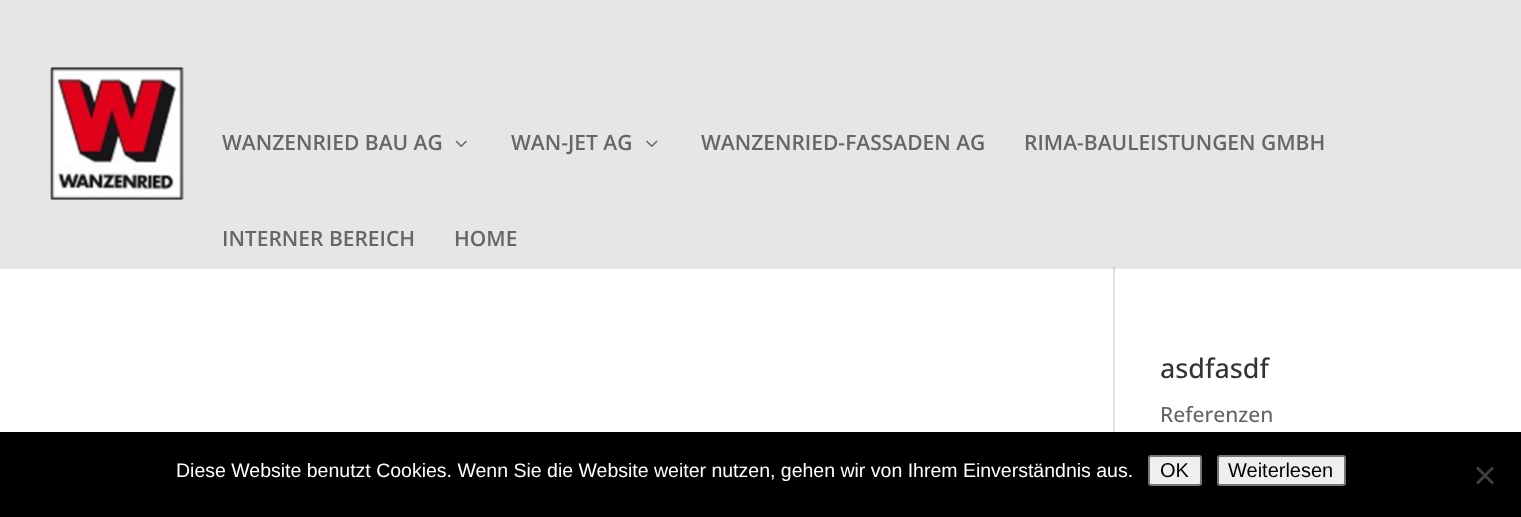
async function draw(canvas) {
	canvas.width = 1521;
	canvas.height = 517;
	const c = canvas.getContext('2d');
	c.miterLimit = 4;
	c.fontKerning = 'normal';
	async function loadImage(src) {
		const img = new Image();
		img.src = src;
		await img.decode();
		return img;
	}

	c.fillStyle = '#fff';
	c.fillRect(0, 0, 1521, 517);
	c.fillStyle = '#e6e6e6';
	c.fillRect(0, 0, 1521, 269);
	c.drawImage(await loadImage('img1.png'), 50, 67, 134, 133);
	c.font = '600 21px Open Sans';
	c.fillStyle = '#666';
	c.fillText('WANZENRIED BAU AG', 222, 150);
	c.drawImage(await loadImage('img2.png'), 455, 140, 12, 7);
	c.fillText('WAN-JET AG', 511, 150);
	c.drawImage(await loadImage('img3.png'), 646, 140, 12, 7);
	for (const [text, x, y] of [
		['WANZENRIED-FASSADEN AG', 701, 150],
		['RIMA-BAULEISTUNGEN GMBH', 1024, 150],
		['INTERNER BEREICH', 222, 246],
		['HOME', 454, 246],
	]) {
		c.fillText(text, x, y);
	}
	c.fillStyle = '#e2e2e2';
	c.fillRect(1113, 267, 2, 165);
	c.fillStyle = '#cbcbcb';
	c.fillRect(1113, 267, 2, 2);
	c.font = '500 27px Open Sans';
	c.fillStyle = '#333';
	c.fillText('asdfasdf', 1160, 378);
	c.font = '500 21px Open Sans';
	c.fillStyle = '#666';
	c.fillText('Referenzen', 1160, 422);
	c.fillStyle = '#000';
	c.fillRect(0, 432, 1521, 85);
	c.font = '19.5px Liberation Sans';
	c.fillStyle = '#fff';
	c.fillText('Diese Website benutzt Cookies. Wenn Sie die Website weiter nutzen, gehen wir von Ihrem Einverständnis aus.', 176, 477);
	c.fillStyle = '#efefef';
	c.beginPath();
	c.roundRect(1149, 456, 52, 29, 2);
	c.fill();
	c.strokeStyle = '#767676';
	c.lineWidth = 2;
	c.stroke();
	c.font = '20px Liberation Sans';
	c.fillStyle = '#000';
	c.fillText('OK', 1160, 477);
	c.fillStyle = '#efefef';
	c.beginPath();
	c.roundRect(1218, 456, 127, 29, 2);
	c.fill();
	c.stroke();
	c.fillStyle = '#000';
	c.fillText('Weiterlesen', 1228, 477);
	c.fillStyle = '#404040';
	c.beginPath();
	c.moveTo(1492, 466.5);
	c.lineTo(1494, 468.5);
	c.lineTo(1478, 484.5);
	c.lineTo(1476, 482.5);
	c.closePath();
	c.fill();
	c.beginPath();
	c.moveTo(1476, 468.5);
	c.lineTo(1478, 466.5);
	c.lineTo(1494, 482.5);
	c.lineTo(1492, 484.5);
	c.closePath();
	c.fill();
}

draw(document.querySelector('canvas'));
